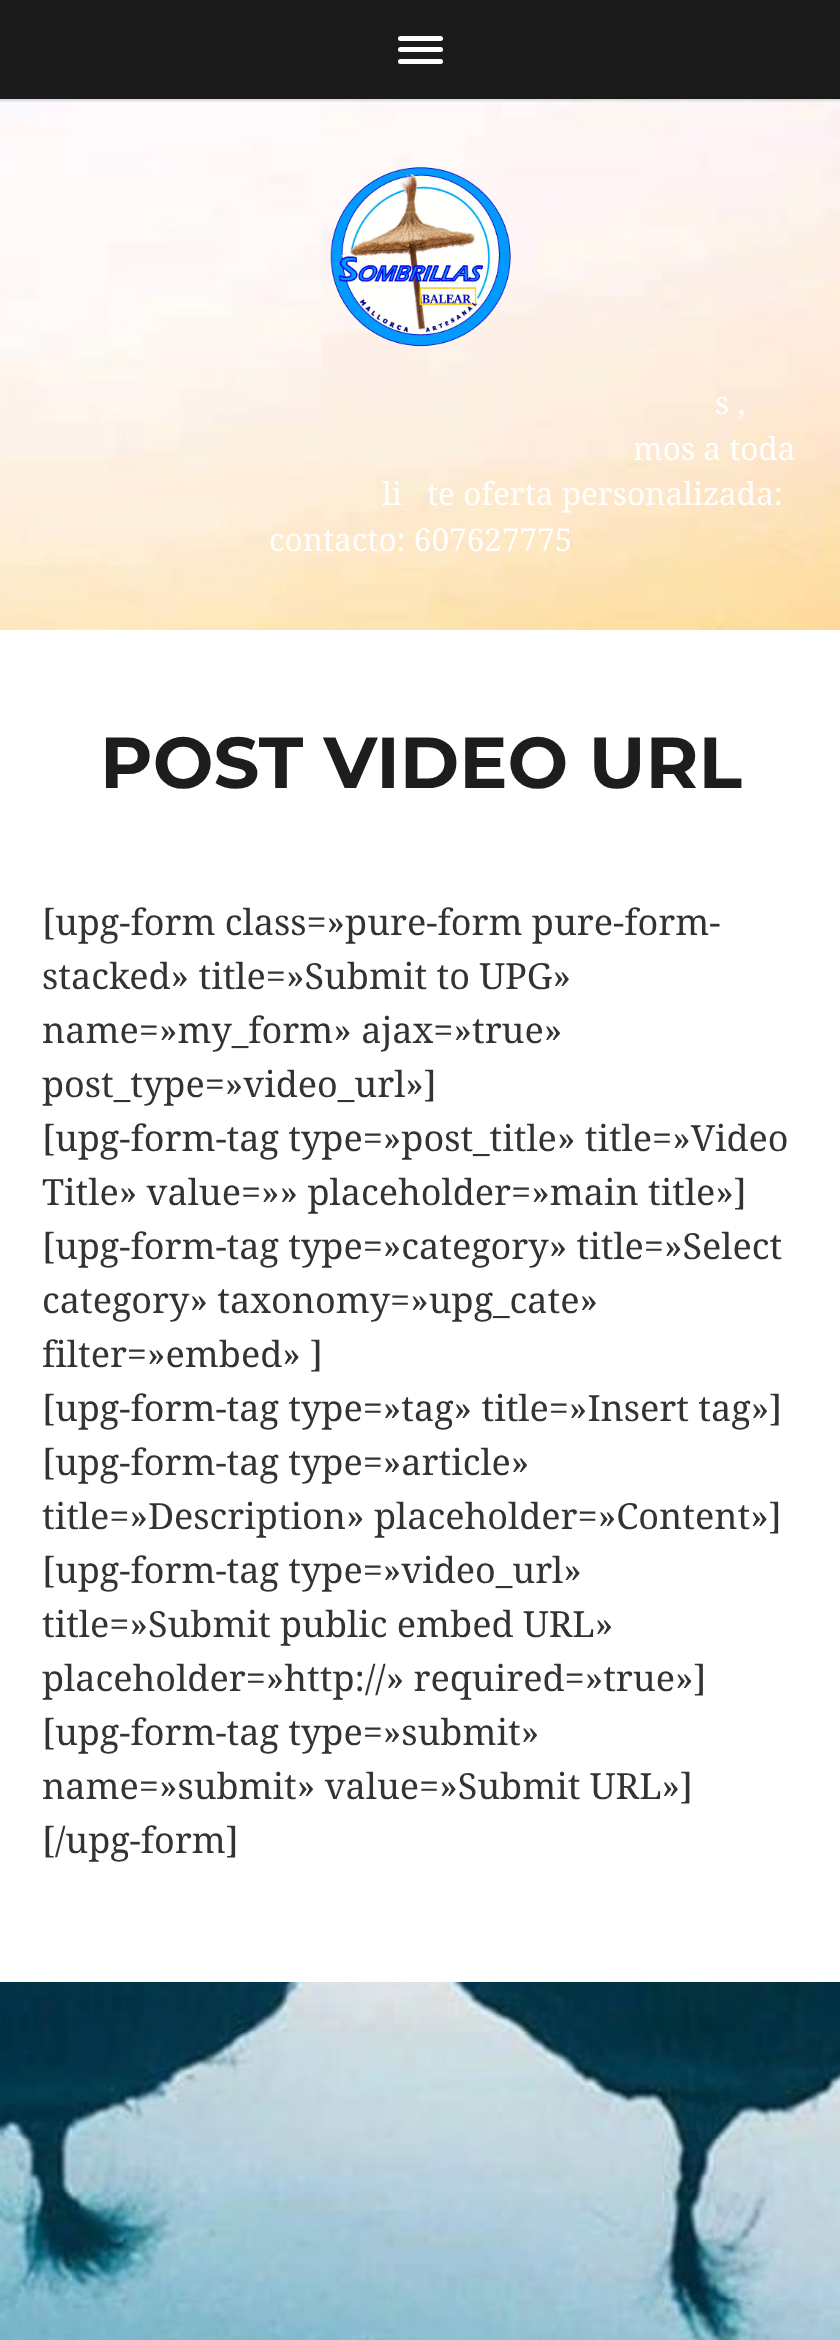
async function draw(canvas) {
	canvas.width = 840;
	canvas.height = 2340;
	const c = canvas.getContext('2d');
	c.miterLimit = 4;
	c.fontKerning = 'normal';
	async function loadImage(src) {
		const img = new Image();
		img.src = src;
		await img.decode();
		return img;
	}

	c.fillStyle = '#1a1a1a';
	c.fillRect(0, 0, 840, 2340);
	c.fillStyle = '#fff';
	c.beginPath();
	c.roundRect(398, 36, 45, 5, 2.5);
	c.fill();
	c.beginPath();
	c.roundRect(398, 47, 45, 5, 2.5);
	c.fill();
	c.beginPath();
	c.roundRect(398, 59, 45, 5, 2.5);
	c.fill();
	c.drawImage(await loadImage('img1.png'), 0, 99, 840, 2241);
	c.drawImage(await loadImage('img2.png'), 330, 167, 181, 180);
	c.font = '31.5px Droid Serif';
	for (const [text, x, y] of [
		['s ,', 715, 414],
		['mos a toda', 633, 460],
		['li', 382, 505],
		['te oferta personalizada:', 427, 505],
		['contacto: 607627775', 269, 551],
	]) {
		c.fillText(text, x, y);
	}
	c.fillRect(0, 630, 840, 1352);
	c.font = 'bold 72px Montserrat';
	c.fillStyle = '#1d1d1d';
	c.fillText('POST VIDEO URL', 100, 788);
	c.font = '36px Droid Serif';
	c.fillStyle = '#333';
	for (const [text, x, y] of [
		['[upg-form class=»pure-form pure-form-', 42, 935],
		['stacked» title=»Submit to UPG»', 42, 989],
		['name=»my_form» ajax=»true»', 42, 1043],
		['post_type=»video_url»]', 42, 1097],
		['[upg-form-tag type=»post_title» title=»Video', 42, 1151],
		['Title» value=»» placeholder=»main title»]', 42, 1205],
		['[upg-form-tag type=»category» title=»Select', 42, 1259],
		['category» taxonomy=»upg_cate»', 42, 1313],
		['filter=»embed» ]', 42, 1367],
		['[upg-form-tag type=»tag» title=»Insert tag»]', 42, 1421],
		['[upg-form-tag type=»article»', 42, 1475],
		['title=»Description» placeholder=»Content»]', 42, 1529],
		['[upg-form-tag type=»video_url»', 42, 1583],
		['title=»Submit public embed URL»', 42, 1637],
		['placeholder=»http://» required=»true»]', 42, 1691],
		['[upg-form-tag type=»submit»', 42, 1745],
		['name=»submit» value=»Submit URL»]', 42, 1799],
		['[/upg-form]', 42, 1853],
	]) {
		c.fillText(text, x, y);
	}
}

draw(document.querySelector('canvas'));
